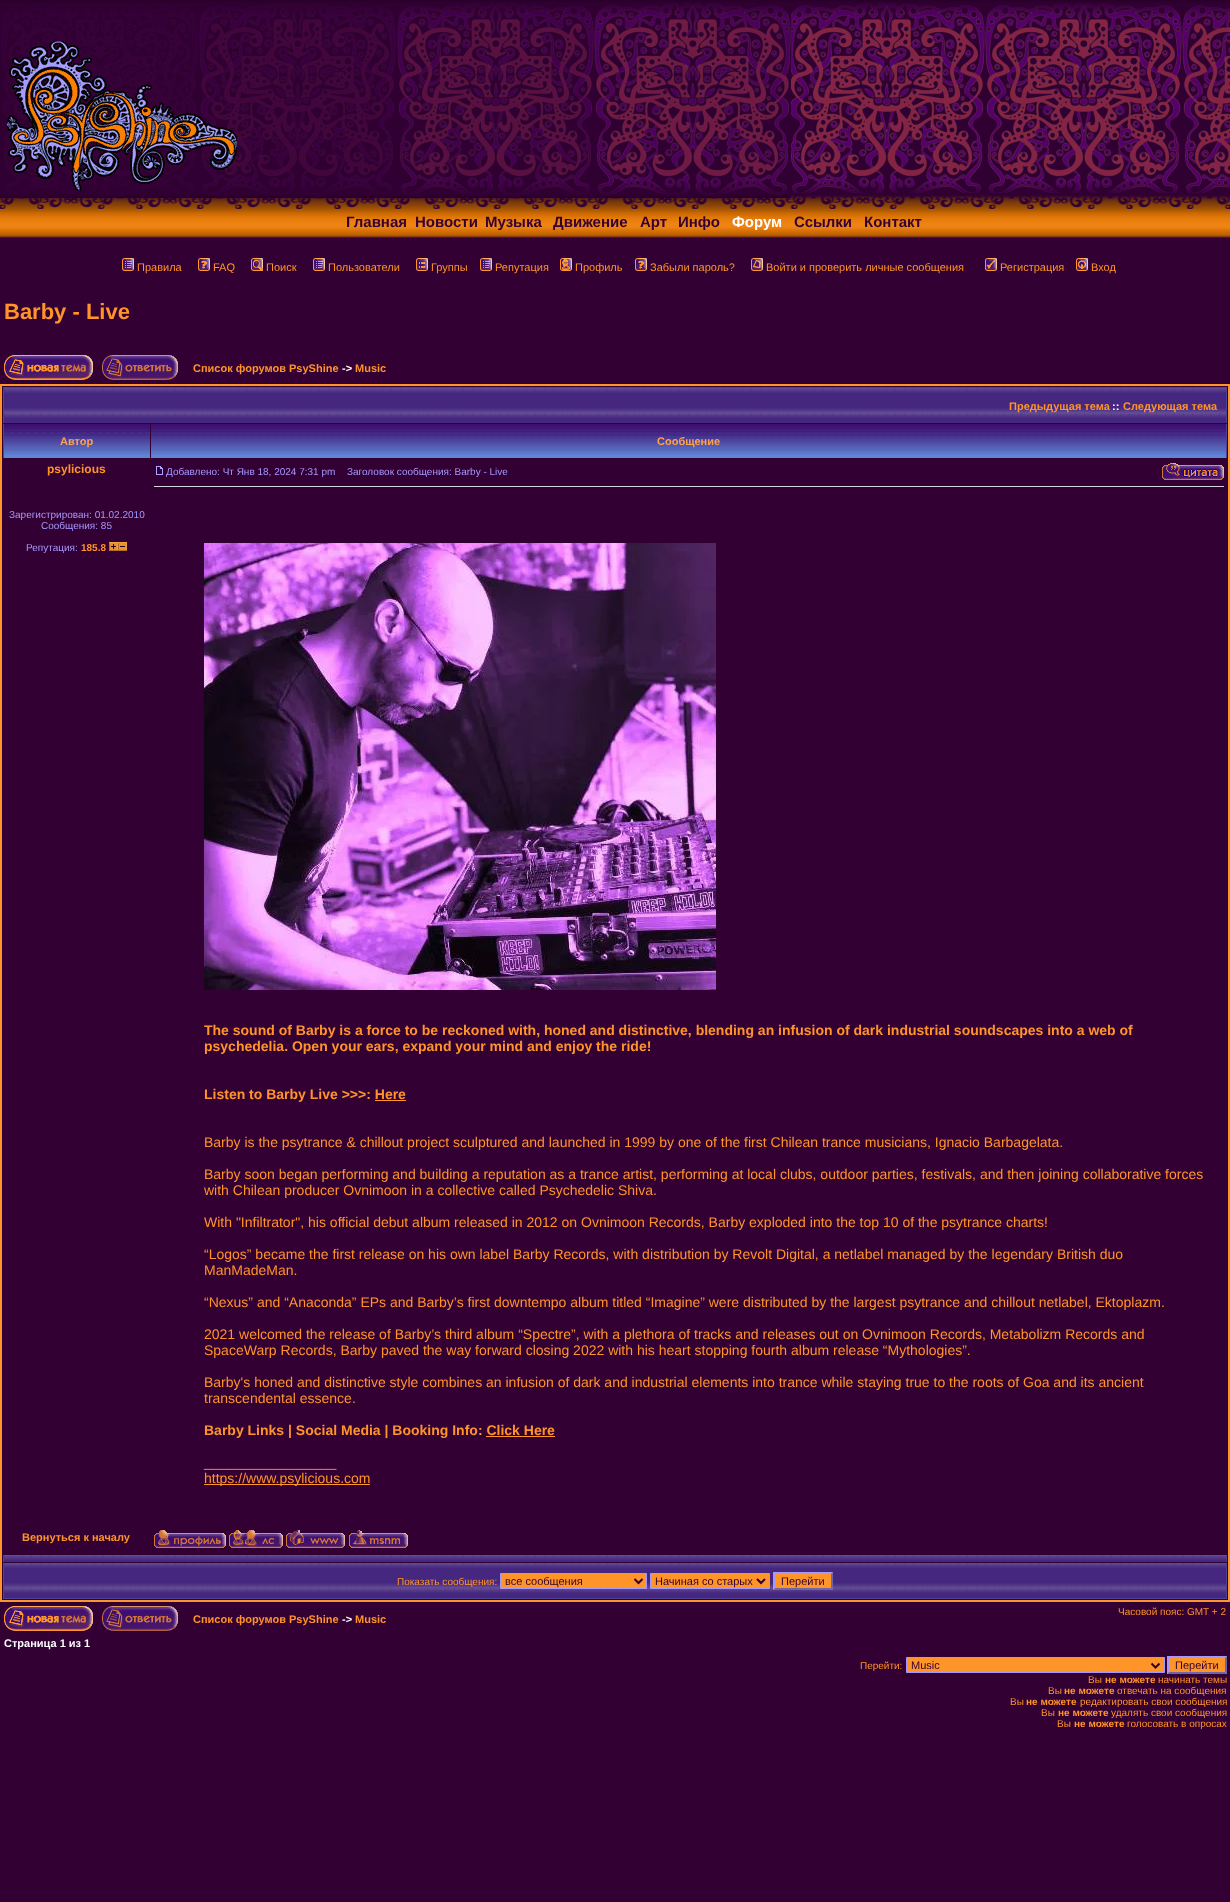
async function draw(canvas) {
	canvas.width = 1230;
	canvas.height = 1902;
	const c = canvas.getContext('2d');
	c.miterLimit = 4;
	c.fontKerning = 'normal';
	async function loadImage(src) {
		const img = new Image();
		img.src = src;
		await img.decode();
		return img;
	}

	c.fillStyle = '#303';
	c.fillRect(0, 0, 1230, 1902);
	c.drawImage(await loadImage('img1.png'), 791, 0, 439, 193);
	c.drawImage(await loadImage('img3.png'), 0, 193, 1230, 45);
	c.drawImage(await loadImage('img2.png'), 0, 0, 791, 198);
	c.font = 'bold 15px Liberation Sans';
	for (const [text, x, y] of [
		['Главная', 346, 227],
		['Новости', 415, 227],
		['Музыка', 485, 227],
		['Движение', 553, 227],
		['Арт', 640, 227],
		['Инфо', 678, 227],
	]) {
		c.fillText(text, x, y);
	}
	c.fillStyle = '#fff';
	c.fillText('Форум', 732, 227);
	c.fillStyle = '#303';
	c.fillText('Ссылки', 794, 227);
	c.fillText('Контакт', 864, 227);
	c.drawImage(await loadImage('img4.png'), 122, 258, 12, 13);
	c.font = '11px Liberation Sans';
	c.fillStyle = '#ff9428';
	c.fillText('Правила', 137, 271);
	c.drawImage(await loadImage('img5.png'), 198, 258, 12, 13);
	c.fillText('FAQ', 213, 271);
	c.drawImage(await loadImage('img6.png'), 251, 258, 12, 13);
	c.fillText('Поиск', 266, 271);
	c.drawImage(await loadImage('img4.png'), 313, 258, 12, 13);
	c.fillText('Пользователи', 328, 271);
	c.drawImage(await loadImage('img7.png'), 416, 258, 12, 13);
	c.fillText('Группы', 431, 271);
	c.drawImage(await loadImage('img4.png'), 480, 258, 12, 13);
	c.fillText('Репутация', 495, 271);
	c.drawImage(await loadImage('img8.png'), 560, 258, 12, 13);
	c.fillText('Профиль', 575, 271);
	c.drawImage(await loadImage('img5.png'), 635, 258, 12, 13);
	c.fillText('Забыли пароль?', 650, 271);
	c.drawImage(await loadImage('img9.png'), 751, 258, 12, 13);
	c.fillText('Войти и проверить личные сообщения', 766, 271);
	c.drawImage(await loadImage('img10.png'), 985, 258, 12, 13);
	c.fillText('Регистрация', 1000, 271);
	c.drawImage(await loadImage('img11.png'), 1076, 258, 12, 13);
	c.fillText('Вход', 1091, 271);
	c.font = 'bold 22px Liberation Sans';
	c.fillText('Barby - Live', 4, 319);
	c.drawImage(await loadImage('img12.png'), 4, 355, 89, 25);
	c.drawImage(await loadImage('img13.png'), 102, 355, 76, 25);
	c.font = 'bold 11px Liberation Sans';
	c.fillText('Список форумов PsyShine', 193, 372);
	c.fillStyle = '#fff';
	c.fillText('->', 342, 372);
	c.fillStyle = '#ff9428';
	c.fillText('Music', 355, 372);
	c.strokeStyle = '#ff9428';
	c.lineWidth = 2;
	c.strokeRect(1, 385, 1228, 1216);
	c.drawImage(await loadImage('img14.png'), 4, 388, 1222, 35);
	for (const [x, y, w, h, color] of [
		[3, 387, 1224, 1, '#4b429b'],
		[1226, 387, 1, 36, '#4b429b'],
		[3, 387, 1, 36, '#4b429b'],
	]) {
		c.fillStyle = color;
		c.fillRect(x, y, w, h);
	}
	c.fillStyle = '#ff9428';
	c.fillText('Предыдущая тема', 1009, 410);
	c.fillStyle = '#fff';
	c.fillText('::', 1112, 410);
	c.fillStyle = '#ff9428';
	c.fillText('Следующая тема', 1123, 410);
	c.drawImage(await loadImage('img15.png'), 4, 424, 146, 34);
	c.fillStyle = '#4b429b';
	c.fillRect(3, 424, 1, 34);
	c.fillStyle = '#ffa34f';
	c.fillText('Автор', 60, 445);
	c.drawImage(await loadImage('img16.png'), 151, 424, 1075, 34);
	c.fillStyle = '#4b429b';
	c.fillRect(1226, 424, 1, 34);
	c.fillStyle = '#ffa34f';
	c.fillText('Сообщение', 657, 445);
	c.font = 'bold 12px Liberation Sans';
	c.fillStyle = '#ff9428';
	c.fillText('psylicious', 47, 473);
	c.font = '10px Liberation Sans';
	c.fillStyle = '#a697fe';
	for (const [text, x, y] of [
		['Зарегистрирован: 01.02.2010', 9, 518],
		['Сообщения: 85', 41, 529],
		['Репутация:', 26, 551],
	]) {
		c.fillText(text, x, y);
	}
	c.font = 'bold 10px Liberation Sans';
	c.fillStyle = '#ff9428';
	c.fillText('185.8', 81, 551);
	c.drawImage(await loadImage('img17.png'), 109, 542, 9, 9);
	c.drawImage(await loadImage('img18.png'), 118, 542, 9, 9);
	c.drawImage(await loadImage('img19.png'), 156, 466, 7, 9);
	c.font = '10px Liberation Sans';
	c.fillStyle = '#a697fe';
	c.fillText('Добавлено: Чт Янв 18, 2024 7:31 pm', 166, 475);
	c.fillText('Заголовок сообщения: Barby - Live', 347, 475);
	c.drawImage(await loadImage('img20.png'), 1162, 463, 62, 17);
	c.fillStyle = '#d1d7dc';
	c.fillRect(154, 486, 1070, 1);
	c.drawImage(await loadImage('img21.png'), 204, 543, 512, 447);
	c.font = 'bold 14px Liberation Sans';
	c.fillStyle = '#ff9428';
	for (const [text, x, y] of [
		['The sound of Barby is a force to be reckoned with, honed and distinctive, blending an infusion of dark industrial soundscapes into a web of', 204, 1035],
		['psychedelia. Open your ears, expand your mind and enjoy the ride!', 204, 1051],
		['Listen to Barby Live >>>: Here', 204, 1099],
	]) {
		c.fillText(text, x, y);
	}
	c.fillRect(375, 1100, 31, 1);
	c.font = '14px Liberation Sans';
	for (const [text, x, y] of [
		['Barby is the psytrance & chillout project sculptured and launched in 1999 by one of the first Chilean trance musicians, Ignacio Barbagelata.', 204, 1147],
		['Barby soon began performing and building a reputation as a trance artist, performing at local clubs, outdoor parties, festivals, and then joining collaborative forces', 204, 1179],
		['with Chilean producer Ovnimoon in a collective called Psychedelic Shiva.', 204, 1195],
		['With "Infiltrator", his official debut album released in 2012 on Ovnimoon Records, Barby exploded into the top 10 of the psytrance charts!', 204, 1227],
		['“Logos” became the first release on his own label Barby Records, with distribution by Revolt Digital, a netlabel managed by the legendary British duo', 204, 1259],
		['ManMadeMan.', 204, 1275],
		['“Nexus” and “Anaconda” EPs and Barby’s first downtempo album titled “Imagine” were distributed by the largest psytrance and chillout netlabel, Ektoplazm.', 204, 1307],
		['2021 welcomed the release of Barby’s third album “Spectre”, with a plethora of tracks and releases out on Ovnimoon Records, Metabolizm Records and', 204, 1339],
		['SpaceWarp Records, Barby paved the way forward closing 2022 with his heart stopping fourth album release “Mythologies”.', 204, 1355],
		['Barby\'s honed and distinctive style combines an infusion of dark and industrial elements into trance while staying true to the roots of Goa and its ancient', 204, 1387],
		['transcendental essence.', 204, 1403],
	]) {
		c.fillText(text, x, y);
	}
	c.font = 'bold 14px Liberation Sans';
	c.fillText('Barby Links | Social Media | Booking Info: Click Here', 204, 1435);
	c.fillRect(486, 1436, 69, 1);
	c.font = '14px Liberation Sans';
	c.fillText('_________________', 204, 1467);
	c.fillRect(204, 1484, 166, 1);
	c.fillText('https://www.psylicious.com', 204, 1483);
	c.font = 'bold 11px Liberation Sans';
	c.fillText('Вернуться к началу', 22, 1541);
	c.drawImage(await loadImage('img22.png'), 154, 1530, 72, 18);
	c.drawImage(await loadImage('img23.png'), 229, 1530, 54, 18);
	c.drawImage(await loadImage('img24.png'), 286, 1530, 59, 18);
	c.drawImage(await loadImage('img25.png'), 349, 1530, 59, 18);
	c.drawImage(await loadImage('img26.png'), 4, 1555, 1222, 7);
	c.fillStyle = '#4b429b';
	c.fillRect(1226, 1555, 1, 7);
	c.fillRect(3, 1555, 1, 7);
	c.drawImage(await loadImage('img14.png'), 4, 1563, 1222, 35);
	for (const [x, y, w, h, color] of [
		[1226, 1563, 1, 36, '#4b429b'],
		[3, 1598, 1224, 1, '#4b429b'],
		[3, 1563, 1, 36, '#4b429b'],
	]) {
		c.fillStyle = color;
		c.fillRect(x, y, w, h);
	}
	c.font = '10px Liberation Sans';
	c.fillStyle = '#ff9428';
	c.fillText('Показать сообщения:', 397, 1585);
	c.beginPath();
	c.rect(500.5, 1573.5, 146, 15);
	c.fill();
	c.strokeStyle = '#a697fe';
	c.lineWidth = 1;
	c.stroke();
	c.beginPath();
	c.moveTo(634.5, 1579);
	c.lineTo(638.5, 1583);
	c.lineTo(642.5, 1579);
	c.strokeStyle = '#303';
	c.lineWidth = 2;
	c.stroke();
	c.font = '11px Liberation Sans';
	c.fillStyle = '#303';
	c.fillText('все сообщения', 505, 1585);
	c.fillStyle = '#ff9428';
	c.beginPath();
	c.rect(650.5, 1573.5, 119, 15);
	c.fill();
	c.strokeStyle = '#a697fe';
	c.lineWidth = 1;
	c.stroke();
	c.beginPath();
	c.moveTo(757, 1579);
	c.lineTo(761, 1583);
	c.lineTo(765, 1579);
	c.strokeStyle = '#303';
	c.lineWidth = 2;
	c.stroke();
	c.fillStyle = '#303';
	c.fillText('Начиная со старых', 655, 1585);
	c.fillStyle = '#ff9428';
	c.fillRect(773, 1572, 60, 18);
	c.fillStyle = '#a697fe';
	c.beginPath();
	c.moveTo(773, 1572);
	c.lineTo(833, 1572);
	c.lineTo(831, 1574);
	c.lineTo(775, 1574);
	c.closePath();
	c.fill();
	c.fillStyle = '#6f65a9';
	c.beginPath();
	c.moveTo(833, 1572);
	c.lineTo(833, 1590);
	c.lineTo(831, 1588);
	c.lineTo(831, 1574);
	c.closePath();
	c.fill();
	c.beginPath();
	c.moveTo(833, 1590);
	c.lineTo(773, 1590);
	c.lineTo(775, 1588);
	c.lineTo(831, 1588);
	c.closePath();
	c.fill();
	c.fillStyle = '#a697fe';
	c.beginPath();
	c.moveTo(773, 1590);
	c.lineTo(773, 1572);
	c.lineTo(775, 1574);
	c.lineTo(775, 1588);
	c.closePath();
	c.fill();
	c.fillStyle = '#303';
	c.fillText('Перейти', 781, 1585);
	c.drawImage(await loadImage('img12.png'), 4, 1606, 89, 25);
	c.drawImage(await loadImage('img13.png'), 102, 1606, 76, 25);
	c.font = '10px Liberation Sans';
	c.fillStyle = '#ff9428';
	c.fillText('Часовой пояс: GMT + 2', 1118, 1615);
	c.font = 'bold 11px Liberation Sans';
	c.fillText('Список форумов PsyShine', 193, 1623);
	c.fillStyle = '#fff';
	c.fillText('->', 342, 1623);
	c.fillStyle = '#ff9428';
	c.fillText('Music', 355, 1623);
	c.fillStyle = '#fff';
	c.fillText('Страница 1 из 1', 4, 1647);
	c.font = '10px Liberation Sans';
	c.fillStyle = '#ff9428';
	c.fillText('Перейти:', 860, 1669);
	c.beginPath();
	c.rect(906.5, 1657.5, 258, 15);
	c.fill();
	c.strokeStyle = '#a697fe';
	c.lineWidth = 1;
	c.stroke();
	c.beginPath();
	c.moveTo(1151.5, 1663.5);
	c.lineTo(1155.5, 1667.5);
	c.lineTo(1159.5, 1663.5);
	c.strokeStyle = '#303';
	c.lineWidth = 2;
	c.stroke();
	c.font = '11px Liberation Sans';
	c.fillStyle = '#303';
	c.fillText('Music', 911, 1669);
	c.fillStyle = '#ff9428';
	c.fillRect(1167, 1656, 60, 18);
	c.fillStyle = '#a697fe';
	c.beginPath();
	c.moveTo(1167, 1656);
	c.lineTo(1227, 1656);
	c.lineTo(1225, 1658);
	c.lineTo(1169, 1658);
	c.closePath();
	c.fill();
	c.fillStyle = '#6f65a9';
	c.beginPath();
	c.moveTo(1227, 1656);
	c.lineTo(1227, 1674);
	c.lineTo(1225, 1672);
	c.lineTo(1225, 1658);
	c.closePath();
	c.fill();
	c.beginPath();
	c.moveTo(1227, 1674);
	c.lineTo(1167, 1674);
	c.lineTo(1169, 1672);
	c.lineTo(1225, 1672);
	c.closePath();
	c.fill();
	c.fillStyle = '#a697fe';
	c.beginPath();
	c.moveTo(1167, 1674);
	c.lineTo(1167, 1656);
	c.lineTo(1169, 1658);
	c.lineTo(1169, 1672);
	c.closePath();
	c.fill();
	c.fillStyle = '#303';
	c.fillText('Перейти', 1175, 1669);
	c.font = '10px Liberation Sans';
	c.fillStyle = '#ff9428';
	c.fillText('Вы', 1088, 1683);
	c.font = 'bold 10px Liberation Sans';
	c.fillText('не можете', 1105, 1683);
	c.font = '10px Liberation Sans';
	c.fillText('начинать темы', 1158, 1683);
	c.fillText('Вы', 1048, 1694);
	c.font = 'bold 10px Liberation Sans';
	c.fillText('не можете', 1064, 1694);
	c.font = '10px Liberation Sans';
	c.fillText('отвечать на сообщения', 1117, 1694);
	c.fillText('Вы', 1010, 1705);
	c.font = 'bold 10px Liberation Sans';
	c.fillText('не можете', 1026, 1705);
	c.font = '10px Liberation Sans';
	c.fillText('редактировать свои сообщения', 1080, 1705);
	c.fillText('Вы', 1041, 1716);
	c.font = 'bold 10px Liberation Sans';
	c.fillText('не можете', 1058, 1716);
	c.font = '10px Liberation Sans';
	c.fillText('удалять свои сообщения', 1111, 1716);
	c.fillText('Вы', 1057, 1727);
	c.font = 'bold 10px Liberation Sans';
	c.fillText('не можете', 1074, 1727);
	c.font = '10px Liberation Sans';
	c.fillText('голосовать в опросах', 1127, 1727);
}

draw(document.querySelector('canvas'));
